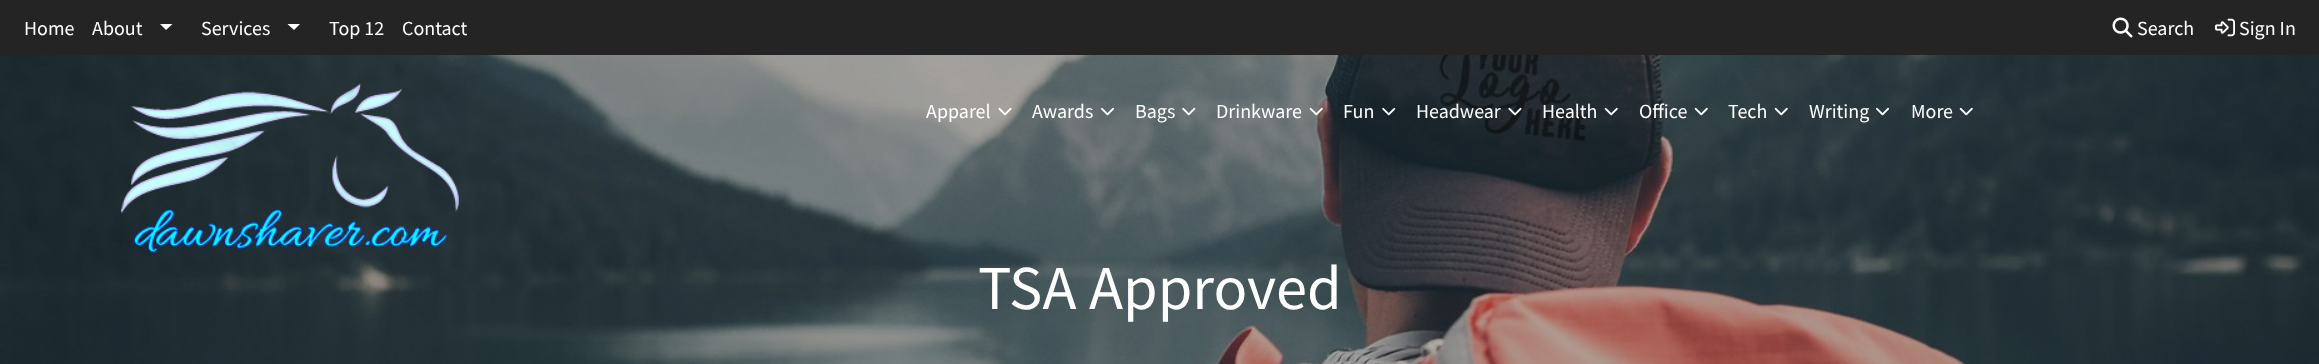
async function draw(canvas) {
	canvas.width = 2319;
	canvas.height = 364;
	const c = canvas.getContext('2d');
	c.miterLimit = 4;
	c.fontKerning = 'normal';
	async function loadImage(src) {
		const img = new Image();
		img.src = src;
		await img.decode();
		return img;
	}

	c.fillStyle = '#fff';
	c.fillRect(0, 0, 2319, 364);
	c.fillStyle = '#242424';
	c.fillRect(0, 0, 2319, 55);
	c.font = '20px Source Sans Pro';
	c.fillStyle = '#fff';
	c.fillText('Home', 24, 35);
	c.fillText('About', 92, 35);
	c.beginPath();
	c.moveTo(160, 24);
	c.lineTo(172.5, 24);
	c.lineTo(166, 30);
	c.closePath();
	c.fill();
	c.fillText('Services', 201, 35);
	c.beginPath();
	c.moveTo(287.5, 24);
	c.lineTo(300, 24);
	c.lineTo(294, 30);
	c.closePath();
	c.fill();
	c.fillText('Top 12', 329, 35);
	c.fillText('Contact', 402, 35);
	c.drawImage(await loadImage('img1.png'), 2112, 17, 21, 21);
	c.fillText('Search', 2137, 35);
	c.drawImage(await loadImage('img2.png'), 2215, 18, 20, 19);
	c.fillText('Sign In', 2239, 35);
	c.drawImage(await loadImage('img15.png'), 0, 55, 2319, 309);
	c.drawImage(await loadImage('img3.png'), 121, 83, 338, 170);
	c.fillText('Apparel', 926, 118);
	c.drawImage(await loadImage('img4.png'), 998, 107, 14, 9);
	c.fillText('Awards', 1032, 118);
	c.drawImage(await loadImage('img5.png'), 1101, 107, 13, 9);
	c.fillText('Bags', 1135, 118);
	c.drawImage(await loadImage('img6.png'), 1182, 107, 14, 9);
	c.fillText('Drinkware', 1216, 118);
	c.drawImage(await loadImage('img7.png'), 1309, 107, 14, 9);
	c.fillText('Fun', 1343, 118);
	c.drawImage(await loadImage('img8.png'), 1382, 107, 14, 9);
	c.fillText('Headwear', 1416, 118);
	c.drawImage(await loadImage('img9.png'), 1508, 107, 14, 9);
	c.fillText('Health', 1542, 118);
	c.drawImage(await loadImage('img10.png'), 1604, 107, 14, 9);
	c.fillText('Office', 1639, 118);
	c.drawImage(await loadImage('img11.png'), 1694, 107, 14, 9);
	c.fillText('Tech', 1728, 118);
	c.drawImage(await loadImage('img12.png'), 1774, 107, 14, 9);
	c.fillText('Writing', 1809, 118);
	c.drawImage(await loadImage('img13.png'), 1876, 107, 13, 9);
	c.fillText('More', 1911, 118);
	c.drawImage(await loadImage('img14.png'), 1959, 107, 14, 9);
	c.font = '62.5px Source Sans Pro';
	c.fillText('TSA Approved', 978, 309);
}

draw(document.querySelector('canvas'));
